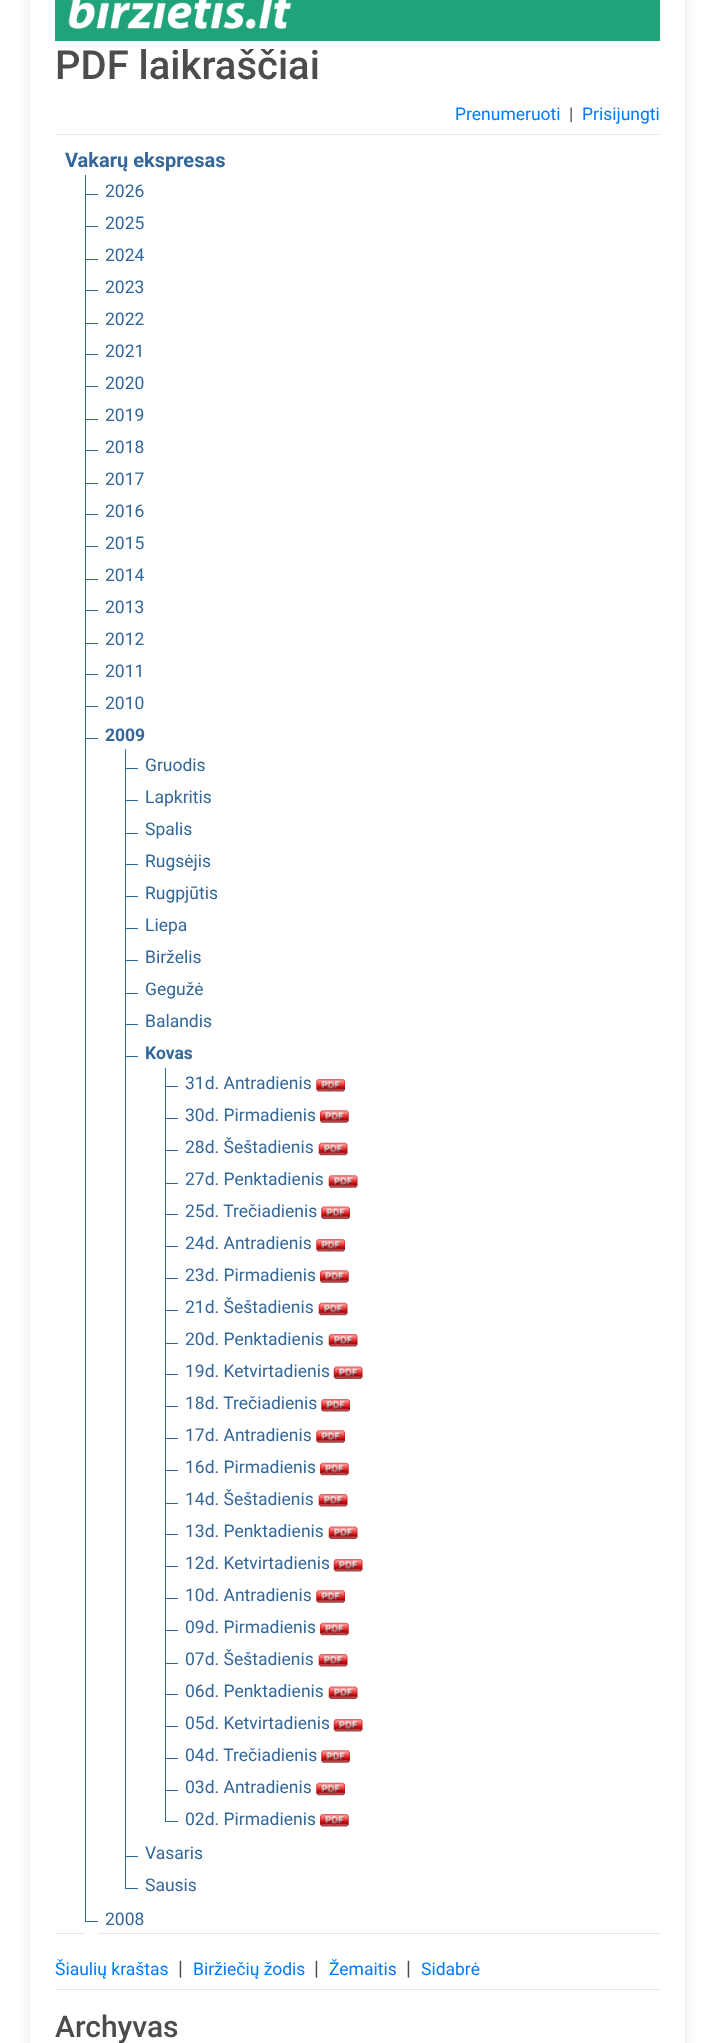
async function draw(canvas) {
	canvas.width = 715;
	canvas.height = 2043;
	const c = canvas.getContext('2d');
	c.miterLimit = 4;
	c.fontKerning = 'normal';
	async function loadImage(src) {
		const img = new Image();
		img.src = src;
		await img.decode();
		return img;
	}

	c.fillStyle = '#fff';
	c.fillRect(0, 0, 715, 2043);
	c.save();
	c.beginPath();
	c.moveTo(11, 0);
	c.lineTo(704, 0);
	c.lineTo(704, 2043);
	c.lineTo(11, 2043);
	c.closePath();
	c.moveTo(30, -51);
	c.lineTo(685, -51);
	c.lineTo(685, 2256);
	c.lineTo(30, 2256);
	c.closePath();
	c.clip('evenodd');
	c.fillStyle = '#0000001a';
	c.filter = 'blur(6px)';
	c.beginPath();
	c.rect(30, -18, 655, 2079);
	c.fill();
	c.filter = 'none';
	c.restore();
	c.fillStyle = '#20a37a';
	c.fillRect(55, 0, 605, 41);
	c.drawImage(await loadImage('img1.png'), 68, 0, 224, 29);
	c.font = '500 40px Roboto';
	c.fillStyle = '#4c4c4c';
	c.fillText('PDF laikraščiai', 55, 79);
	c.font = '17.5px Roboto';
	c.fillStyle = '#007bff';
	c.fillText('Prenumeruoti', 455, 120);
	c.fillStyle = '#4c4c4c';
	c.fillText('|', 569, 120);
	c.fillStyle = '#007bff';
	c.fillText('Prisijungti', 582, 120);
	c.fillStyle = '#e6e6e6';
	c.fillRect(55, 134, 605, 1);
	c.font = 'bold 20px Roboto';
	c.fillStyle = '#369';
	c.fillText('Vakarų ekspresas', 65, 167);
	c.fillRect(85, 175, 1, 1746);
	c.fillRect(85, 194, 13, 1);
	c.font = '17.5px Roboto';
	c.fillText('2026', 105, 197);
	c.fillRect(85, 226, 13, 1);
	c.fillText('2025', 105, 229);
	c.fillRect(85, 259, 13, 1);
	c.fillText('2024', 105, 261);
	c.fillRect(85, 290, 13, 1);
	c.fillText('2023', 105, 293);
	c.fillRect(85, 323, 13, 1);
	c.fillText('2022', 105, 325);
	c.fillRect(85, 354, 13, 1);
	c.fillText('2021', 105, 357);
	c.fillRect(85, 386, 13, 1);
	c.fillText('2020', 105, 389);
	c.fillRect(85, 419, 13, 1);
	c.fillText('2019', 105, 421);
	c.fillRect(85, 450, 13, 1);
	c.fillText('2018', 105, 453);
	c.fillRect(85, 483, 13, 1);
	c.fillText('2017', 105, 485);
	c.fillRect(85, 514, 13, 1);
	c.fillText('2016', 105, 517);
	c.fillRect(85, 546, 13, 1);
	c.fillText('2015', 105, 549);
	c.fillRect(85, 579, 13, 1);
	c.fillText('2014', 105, 581);
	c.fillRect(85, 610, 13, 1);
	c.fillText('2013', 105, 613);
	c.fillRect(85, 643, 13, 1);
	c.fillText('2012', 105, 645);
	c.fillRect(85, 674, 13, 1);
	c.fillText('2011', 105, 677);
	c.fillRect(85, 706, 13, 1);
	c.fillText('2010', 105, 709);
	c.fillRect(85, 738, 13, 1);
	c.font = 'bold 17.5px Roboto';
	c.fillText('2009', 105, 741);
	c.fillRect(125, 749, 1, 1139);
	c.fillRect(125, 768, 13, 1);
	c.font = '17.5px Roboto';
	c.fillText('Gruodis', 145, 771);
	c.fillRect(125, 800, 13, 1);
	c.fillText('Lapkritis', 145, 803);
	c.fillRect(125, 833, 13, 1);
	c.fillText('Spalis', 145, 835);
	c.fillRect(125, 864, 13, 1);
	c.fillText('Rugsėjis', 145, 867);
	c.fillRect(125, 896, 13, 1);
	c.fillText('Rugpjūtis', 145, 899);
	c.fillRect(125, 928, 13, 1);
	c.fillText('Liepa', 145, 931);
	c.fillRect(125, 960, 13, 1);
	c.fillText('Birželis', 145, 963);
	c.fillRect(125, 993, 13, 1);
	c.fillText('Gegužė', 145, 995);
	c.fillRect(125, 1024, 13, 1);
	c.fillText('Balandis', 145, 1027);
	c.fillRect(125, 1056, 13, 1);
	c.font = 'bold 17.5px Roboto';
	c.fillText('Kovas', 145, 1059);
	c.fillRect(165, 1068, 1, 753);
	c.fillRect(165, 1086, 13, 1);
	c.font = '17.5px Roboto';
	c.fillText('31d. Antradienis', 185, 1089);
	c.drawImage(await loadImage('img2.png'), 316, 1079, 29, 13);
	c.fillRect(165, 1118, 13, 1);
	c.fillText('30d. Pirmadienis', 185, 1121);
	c.drawImage(await loadImage('img3.png'), 320, 1110, 29, 13);
	c.fillRect(165, 1150, 13, 1);
	c.fillText('28d. Šeštadienis', 185, 1153);
	c.drawImage(await loadImage('img4.png'), 318, 1142, 30, 14);
	c.fillRect(165, 1183, 13, 1);
	c.fillText('27d. Penktadienis', 185, 1185);
	c.drawImage(await loadImage('img5.png'), 328, 1175, 30, 13);
	c.fillRect(165, 1214, 13, 1);
	c.fillText('25d. Trečiadienis', 185, 1217);
	c.drawImage(await loadImage('img6.png'), 321, 1206, 29, 13);
	c.fillRect(165, 1246, 13, 1);
	c.fillText('24d. Antradienis', 185, 1249);
	c.drawImage(await loadImage('img2.png'), 316, 1239, 29, 13);
	c.fillRect(165, 1278, 13, 1);
	c.fillText('23d. Pirmadienis', 185, 1281);
	c.drawImage(await loadImage('img3.png'), 320, 1270, 29, 13);
	c.fillRect(165, 1310, 13, 1);
	c.fillText('21d. Šeštadienis', 185, 1313);
	c.drawImage(await loadImage('img4.png'), 318, 1302, 30, 14);
	c.fillRect(165, 1343, 13, 1);
	c.fillText('20d. Penktadienis', 185, 1345);
	c.drawImage(await loadImage('img7.png'), 328, 1334, 30, 13);
	c.fillRect(165, 1374, 13, 1);
	c.fillText('19d. Ketvirtadienis', 185, 1377);
	c.drawImage(await loadImage('img8.png'), 333, 1366, 30, 13);
	c.fillRect(165, 1406, 13, 1);
	c.fillText('18d. Trečiadienis', 185, 1409);
	c.drawImage(await loadImage('img2.png'), 321, 1399, 29, 13);
	c.fillRect(165, 1438, 13, 1);
	c.fillText('17d. Antradienis', 185, 1441);
	c.drawImage(await loadImage('img9.png'), 316, 1430, 29, 13);
	c.fillRect(165, 1470, 13, 1);
	c.fillText('16d. Pirmadienis', 185, 1473);
	c.drawImage(await loadImage('img10.png'), 320, 1462, 29, 14);
	c.fillRect(165, 1503, 13, 1);
	c.fillText('14d. Šeštadienis', 185, 1505);
	c.drawImage(await loadImage('img7.png'), 318, 1494, 30, 13);
	c.fillRect(165, 1534, 13, 1);
	c.fillText('13d. Penktadienis', 185, 1537);
	c.drawImage(await loadImage('img8.png'), 328, 1526, 30, 13);
	c.fillRect(165, 1566, 13, 1);
	c.fillText('12d. Ketvirtadienis', 185, 1569);
	c.drawImage(await loadImage('img7.png'), 333, 1559, 30, 13);
	c.fillRect(165, 1598, 13, 1);
	c.fillText('10d. Antradienis', 185, 1601);
	c.drawImage(await loadImage('img9.png'), 316, 1590, 29, 13);
	c.fillRect(165, 1630, 13, 1);
	c.fillText('09d. Pirmadienis', 185, 1633);
	c.drawImage(await loadImage('img10.png'), 320, 1622, 29, 14);
	c.fillRect(165, 1663, 13, 1);
	c.fillText('07d. Šeštadienis', 185, 1665);
	c.drawImage(await loadImage('img7.png'), 318, 1654, 30, 13);
	c.fillRect(165, 1694, 13, 1);
	c.fillText('06d. Penktadienis', 185, 1697);
	c.drawImage(await loadImage('img8.png'), 328, 1686, 30, 13);
	c.fillRect(165, 1726, 13, 1);
	c.fillText('05d. Ketvirtadienis', 185, 1729);
	c.drawImage(await loadImage('img7.png'), 333, 1719, 30, 13);
	c.fillRect(165, 1758, 13, 1);
	c.fillText('04d. Trečiadienis', 185, 1761);
	c.drawImage(await loadImage('img9.png'), 321, 1750, 29, 13);
	c.fillRect(165, 1790, 13, 1);
	c.fillText('03d. Antradienis', 185, 1793);
	c.drawImage(await loadImage('img11.png'), 316, 1782, 29, 14);
	c.fillRect(165, 1821, 13, 1);
	c.fillText('02d. Pirmadienis', 185, 1825);
	c.drawImage(await loadImage('img12.png'), 320, 1814, 29, 13);
	c.fillRect(125, 1856, 13, 1);
	c.fillText('Vasaris', 145, 1859);
	c.fillRect(125, 1888, 13, 1);
	c.fillText('Sausis', 145, 1891);
	c.fillText('2008', 105, 1925);
	for (const [x, y, w, h, color] of [
		[55, 1933, 605, 1, '#e6e6e6'],
		[85, 1933, 13, 1, '#fff'],
		[85, 1921, 13, 1, '#369'],
	]) {
		c.fillStyle = color;
		c.fillRect(x, y, w, h);
	}
	c.fillStyle = '#007bff';
	c.fillText('Šiaulių kraštas', 55, 1975);
	c.font = '20px Roboto';
	c.fillStyle = '#4c4c4c';
	c.fillText('|', 178, 1975);
	c.font = '17.5px Roboto';
	c.fillStyle = '#007bff';
	c.fillText('Biržiečių žodis', 193, 1975);
	c.font = '20px Roboto';
	c.fillStyle = '#4c4c4c';
	c.fillText('|', 314, 1975);
	c.font = '17.5px Roboto';
	c.fillStyle = '#007bff';
	c.fillText('Žemaitis', 329, 1975);
	c.font = '20px Roboto';
	c.fillStyle = '#4c4c4c';
	c.fillText('|', 406, 1975);
	c.font = '17.5px Roboto';
	c.fillStyle = '#007bff';
	c.fillText('Sidabrė', 421, 1975);
	c.fillStyle = '#e6e6e6';
	c.fillRect(55, 1989, 605, 1);
	c.font = '500 30px Roboto';
	c.fillStyle = '#4c4c4c';
	c.fillText('Archyvas', 55, 2037);
}

draw(document.querySelector('canvas'));
